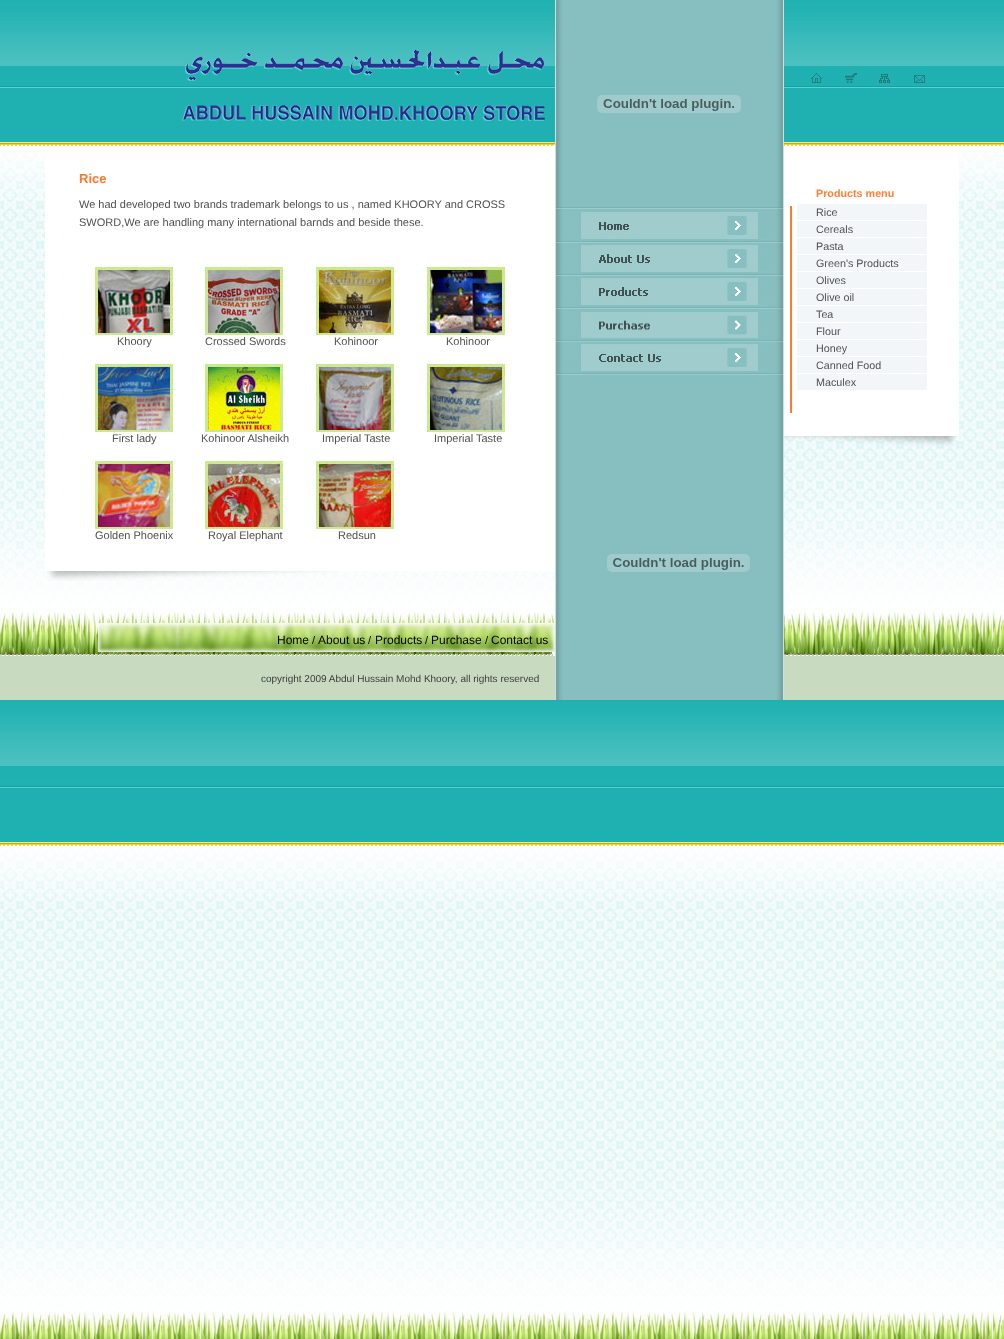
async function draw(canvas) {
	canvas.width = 1004;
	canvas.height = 1339;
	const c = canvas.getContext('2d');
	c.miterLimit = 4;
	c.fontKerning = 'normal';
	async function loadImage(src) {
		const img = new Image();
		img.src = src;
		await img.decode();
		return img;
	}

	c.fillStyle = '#fff';
	c.fillRect(0, 0, 1004, 1339);
	c.drawImage(await loadImage('img1.png'), 0, 0, 1004, 1339);
	c.drawImage(await loadImage('img2.png'), 181, 48, 365, 73);
	c.drawImage(await loadImage('img3.png'), 555, 0, 229, 700);
	c.drawImage(await loadImage('img4.png'), 597, 95, 144, 18);
	c.drawImage(await loadImage('img5.png'), 556, 207, 227, 231);
	c.drawImage(await loadImage('img6.png'), 556, 210, 228, 33);
	c.drawImage(await loadImage('img7.png'), 556, 243, 228, 33);
	c.drawImage(await loadImage('img8.png'), 556, 276, 228, 33);
	c.drawImage(await loadImage('img9.png'), 556, 309, 228, 33);
	c.drawImage(await loadImage('img10.png'), 556, 342, 228, 33);
	c.drawImage(await loadImage('img11.png'), 556, 405, 227, 2);
	c.drawImage(await loadImage('img11.png'), 556, 438, 227, 2);
	c.drawImage(await loadImage('img12.png'), 607, 554, 143, 18);
	c.drawImage(await loadImage('img13.png'), 809, 67, 119, 19);
	c.fillRect(45, 146, 510, 425);
	c.font = 'bold 13px Liberation Sans';
	c.fillStyle = '#fd772e';
	c.fillText('Rice', 79, 183);
	c.font = '11px Liberation Sans';
	c.fillStyle = '#505050';
	c.fillText('We had developed two brands trademark belongs to us , named KHOORY and CROSS', 79, 208);
	c.fillText('SWORD,We are handling many international barnds and beside these.', 79, 226);
	c.drawImage(await loadImage('img14.png'), 95, 267, 78, 68);
	c.drawImage(await loadImage('img15.png'), 205, 267, 78, 68);
	c.drawImage(await loadImage('img16.png'), 316, 267, 78, 68);
	c.drawImage(await loadImage('img17.png'), 427, 267, 78, 68);
	for (const [text, x, y] of [
		['Khoory', 117, 345],
		['Crossed Swords', 205, 345],
		['Kohinoor', 334, 345],
		['Kohinoor', 446, 345],
	]) {
		c.fillText(text, x, y);
	}
	c.drawImage(await loadImage('img18.png'), 95, 364, 78, 68);
	c.drawImage(await loadImage('img19.png'), 205, 364, 78, 68);
	c.drawImage(await loadImage('img20.png'), 316, 364, 78, 68);
	c.drawImage(await loadImage('img21.png'), 427, 364, 78, 68);
	for (const [text, x, y] of [
		['First lady', 112, 442],
		['Kohinoor Alsheikh', 201, 442],
		['Imperial Taste', 322, 442],
		['Imperial Taste', 434, 442],
	]) {
		c.fillText(text, x, y);
	}
	c.drawImage(await loadImage('img22.png'), 95, 461, 78, 68);
	c.drawImage(await loadImage('img23.png'), 205, 461, 78, 68);
	c.drawImage(await loadImage('img24.png'), 316, 461, 78, 68);
	for (const [text, x, y] of [
		['Golden Phoenix', 95, 539],
		['Royal Elephant', 208, 539],
		['Redsun', 338, 539],
	]) {
		c.fillText(text, x, y);
	}
	c.fillStyle = '#fff';
	c.fillRect(784, 146, 175, 290);
	c.drawImage(await loadImage('img25.png'), 784, 206, 8, 207);
	c.font = 'bold 10.75px Liberation Sans';
	c.fillStyle = '#ff8037';
	c.fillText('Products menu', 816, 197);
	c.fillStyle = '#f2f6f9';
	c.fillRect(797, 204, 130, 16);
	c.font = '10.75px Liberation Sans';
	c.fillStyle = '#505050';
	c.fillText('Rice', 816, 216);
	c.fillStyle = '#f2f6f9';
	c.fillRect(797, 221, 130, 16);
	c.fillStyle = '#505050';
	c.fillText('Cereals', 816, 233);
	c.fillStyle = '#f2f6f9';
	c.fillRect(797, 238, 130, 16);
	c.fillStyle = '#505050';
	c.fillText('Pasta', 816, 250);
	c.fillStyle = '#f2f6f9';
	c.fillRect(797, 255, 130, 16);
	c.fillStyle = '#505050';
	c.fillText('Green\'s Products', 816, 267);
	c.fillStyle = '#f2f6f9';
	c.fillRect(797, 272, 130, 16);
	c.fillStyle = '#505050';
	c.fillText('Olives', 816, 284);
	c.fillStyle = '#f2f6f9';
	c.fillRect(797, 289, 130, 16);
	c.fillStyle = '#505050';
	c.fillText('Olive oil', 816, 301);
	c.fillStyle = '#f2f6f9';
	c.fillRect(797, 306, 130, 16);
	c.fillStyle = '#505050';
	c.fillText('Tea', 816, 318);
	c.fillStyle = '#f2f6f9';
	c.fillRect(797, 323, 130, 16);
	c.fillStyle = '#505050';
	c.fillText('Flour', 816, 335);
	c.fillStyle = '#f2f6f9';
	c.fillRect(797, 340, 130, 16);
	c.fillStyle = '#505050';
	c.fillText('Honey', 816, 352);
	c.fillStyle = '#f2f6f9';
	c.fillRect(797, 357, 130, 16);
	c.fillStyle = '#505050';
	c.fillText('Canned Food', 816, 369);
	c.fillStyle = '#f2f6f9';
	c.fillRect(797, 374, 130, 16);
	c.fillStyle = '#505050';
	c.fillText('Maculex', 816, 386);
	c.drawImage(await loadImage('img26.png'), 784, 436, 172, 19);
	c.drawImage(await loadImage('img27.png'), 47, 571, 292, 10);
	c.drawImage(await loadImage('img28.png'), 47, 623, 508, 33);
	c.font = '12px Liberation Sans';
	c.fillStyle = '#000';
	c.fillText('Home', 277, 644);
	c.font = '11px Liberation Sans';
	c.fillText('/', 312, 644);
	c.font = '12px Liberation Sans';
	c.fillText('About us', 318, 644);
	c.font = '11px Liberation Sans';
	c.fillText('/', 368, 644);
	c.font = '12px Liberation Sans';
	c.fillText('Products', 375, 644);
	c.font = '11px Liberation Sans';
	c.fillText('/', 425, 644);
	c.font = '12px Liberation Sans';
	c.fillText('Purchase', 431, 644);
	c.font = '11px Liberation Sans';
	c.fillText('/', 485, 644);
	c.font = '12px Liberation Sans';
	c.fillText('Contact us', 491, 644);
	c.font = '10px Liberation Sans';
	c.fillStyle = '#3c3d3c';
	c.fillText('copyright 2009 Abdul Hussain Mohd Khoory, all rights reserved', 261, 682);
}

draw(document.querySelector('canvas'));
